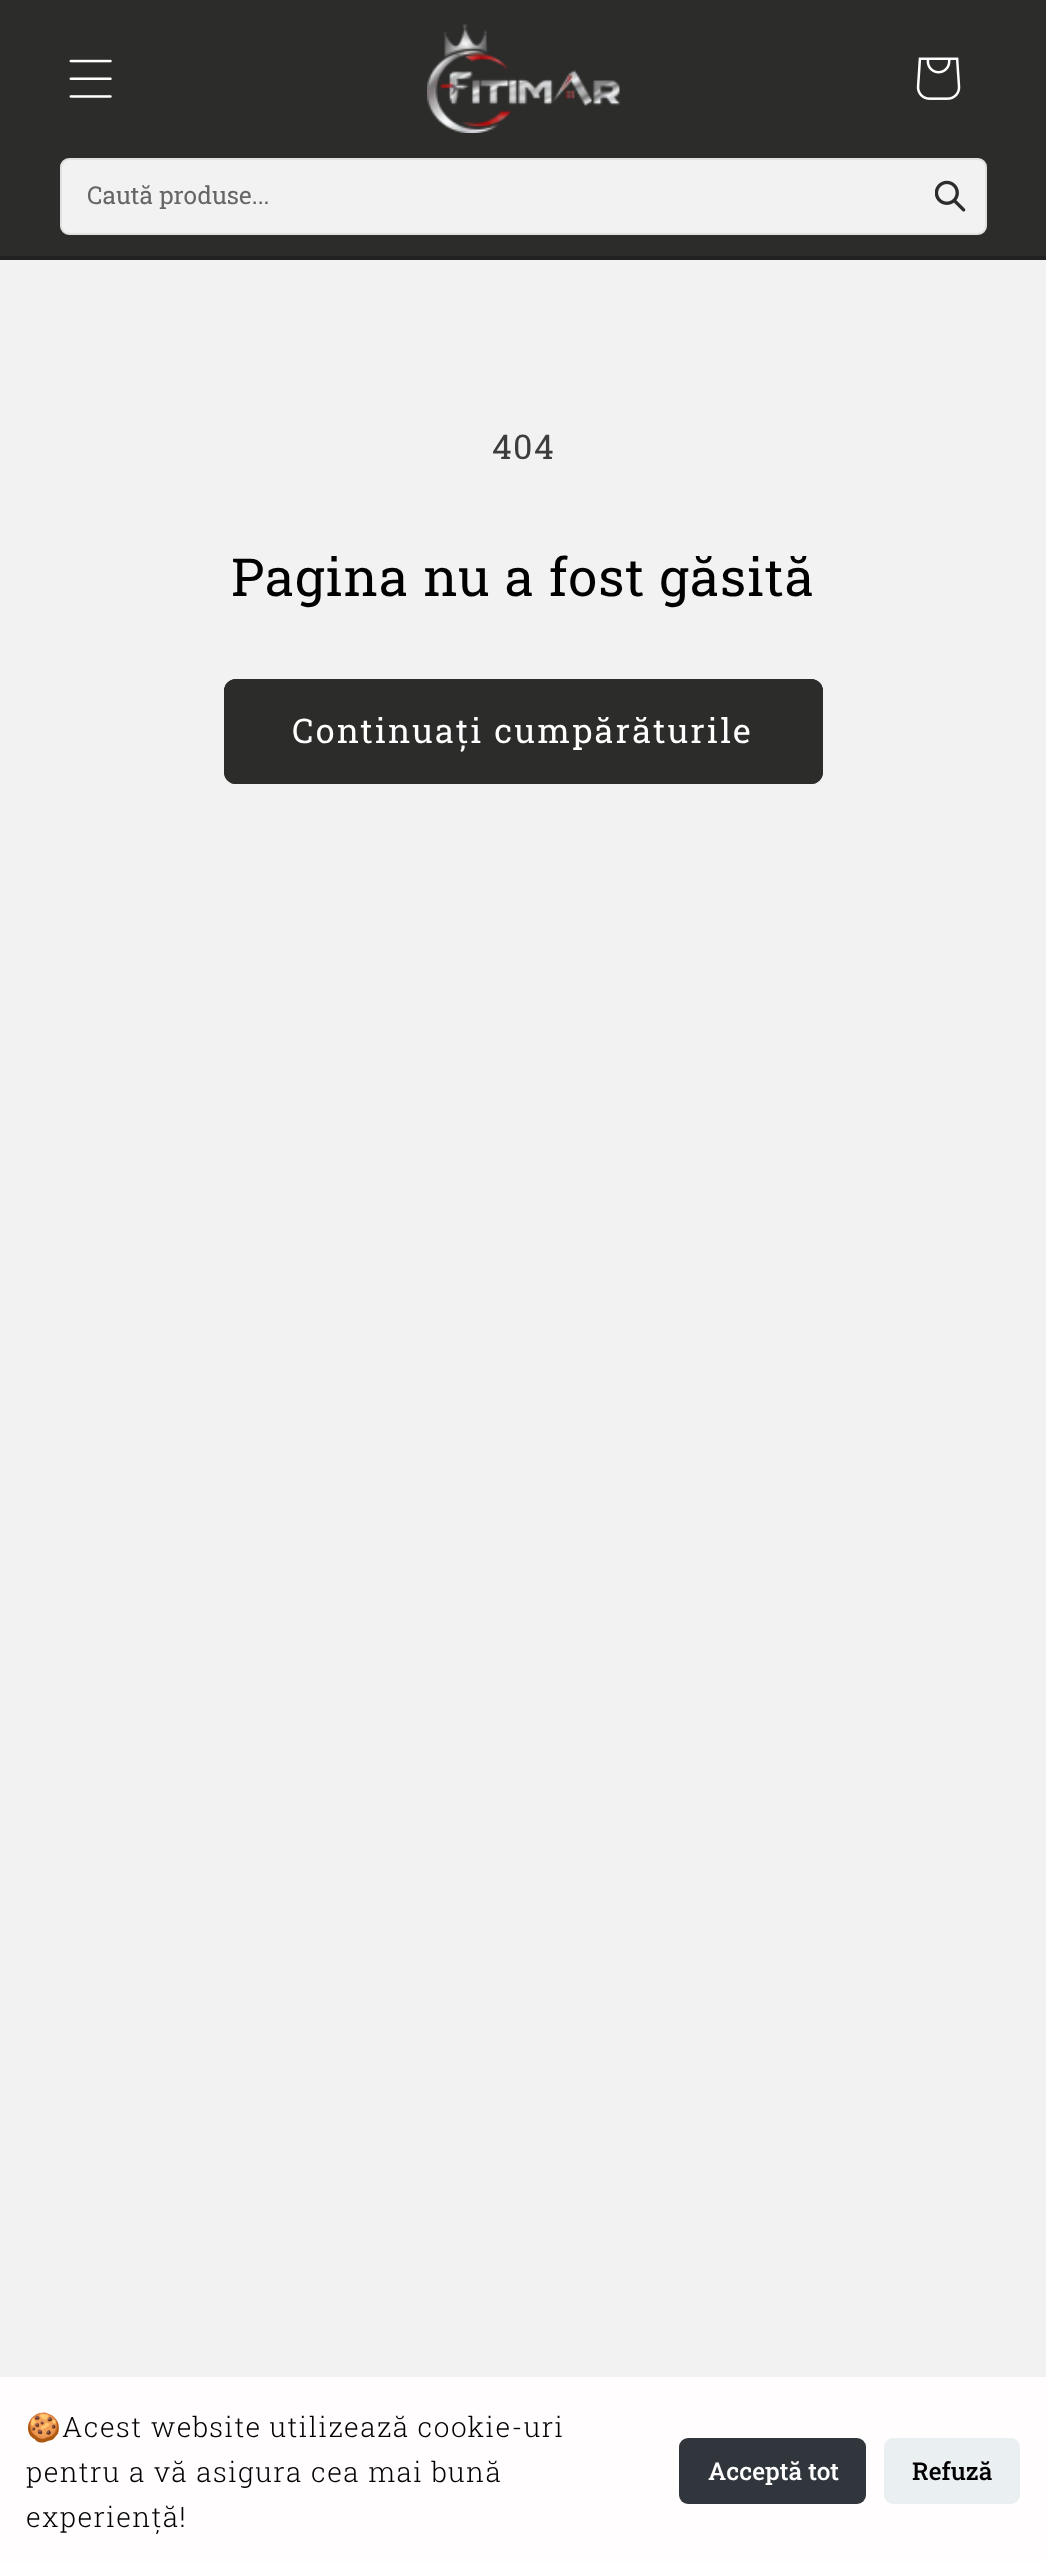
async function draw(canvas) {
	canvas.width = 1046;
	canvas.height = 2564;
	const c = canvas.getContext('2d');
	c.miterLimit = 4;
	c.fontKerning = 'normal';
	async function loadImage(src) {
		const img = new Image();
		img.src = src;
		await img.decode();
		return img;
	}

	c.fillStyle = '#f2f2f2';
	c.fillRect(0, 0, 1046, 2564);
	c.fillStyle = '#2c2c2b';
	c.fillRect(0, 0, 1046, 256);
	c.fillStyle = '#222';
	c.fillRect(0, 256, 1046, 4);
	c.drawImage(await loadImage('img1.png'), 69, 59, 43, 39);
	c.drawImage(await loadImage('img2.png'), 427, 24, 193, 109);
	c.drawImage(await loadImage('img3.png'), 916, 57, 45, 43);
	c.fillStyle = '#f2f2f2';
	c.beginPath();
	c.roundRect(61, 159, 925, 75, 8);
	c.fill();
	c.strokeStyle = '#e0e0e0';
	c.lineWidth = 2;
	c.stroke();
	c.font = '24.5px Roboto Slab';
	c.fillStyle = '#666';
	c.fillText('Caută produse...', 87, 204);
	c.drawImage(await loadImage('img4.png'), 935, 180, 31, 32);
	c.letterSpacing = '1.35px';
	c.font = '34.1px Roboto Slab';
	c.fillStyle = '#3d3d3d';
	c.fillText('404', 492, 459);
	c.letterSpacing = '1.05px';
	c.font = '52.5px Roboto Slab';
	c.fillStyle = '#000';
	c.fillText('Pagina nu a fost găsită', 231, 596);
	c.fillStyle = '#2c2c2b';
	c.beginPath();
	c.roundRect(224, 679, 599, 105, 12);
	c.fill();
	c.beginPath();
	c.roundRect(225, 680, 597, 103, 11);
	c.strokeStyle = '#2c2c2b';
	c.stroke();
	c.letterSpacing = '2.25px';
	c.font = '34.1px Roboto Slab';
	c.fillStyle = '#fff';
	c.fillText('Continuați cumpărăturile', 292, 743);
	c.fillStyle = '#fffdfd';
	c.fillRect(0, 2377, 1046, 187);
	c.letterSpacing = '1.35px';
	c.font = '28px Noto Color Emoji';
	c.fillStyle = '#000';
	c.fillText('🍪', 26, 2437);
	c.font = '300 28px Roboto Slab';
	for (const [text, x, y] of [
		['Acest website utilizează cookie-uri', 62, 2437],
		['pentru a vă asigura cea mai bună', 26, 2482],
		['experiență!', 26, 2527],
	]) {
		c.fillText(text, x, y);
	}
	c.fillStyle = '#30363c';
	c.beginPath();
	c.roundRect(679, 2438, 187, 66, 9);
	c.fill();
	c.letterSpacing = '0px';
	c.font = '500 24.5px Roboto Slab';
	c.fillStyle = '#fff';
	c.fillText('Acceptă tot', 708, 2480);
	c.fillStyle = '#eaeff2';
	c.beginPath();
	c.roundRect(884, 2438, 136, 66, 9);
	c.fill();
	c.fillStyle = '#000';
	c.fillText('Refuză', 912, 2480);
}

draw(document.querySelector('canvas'));
